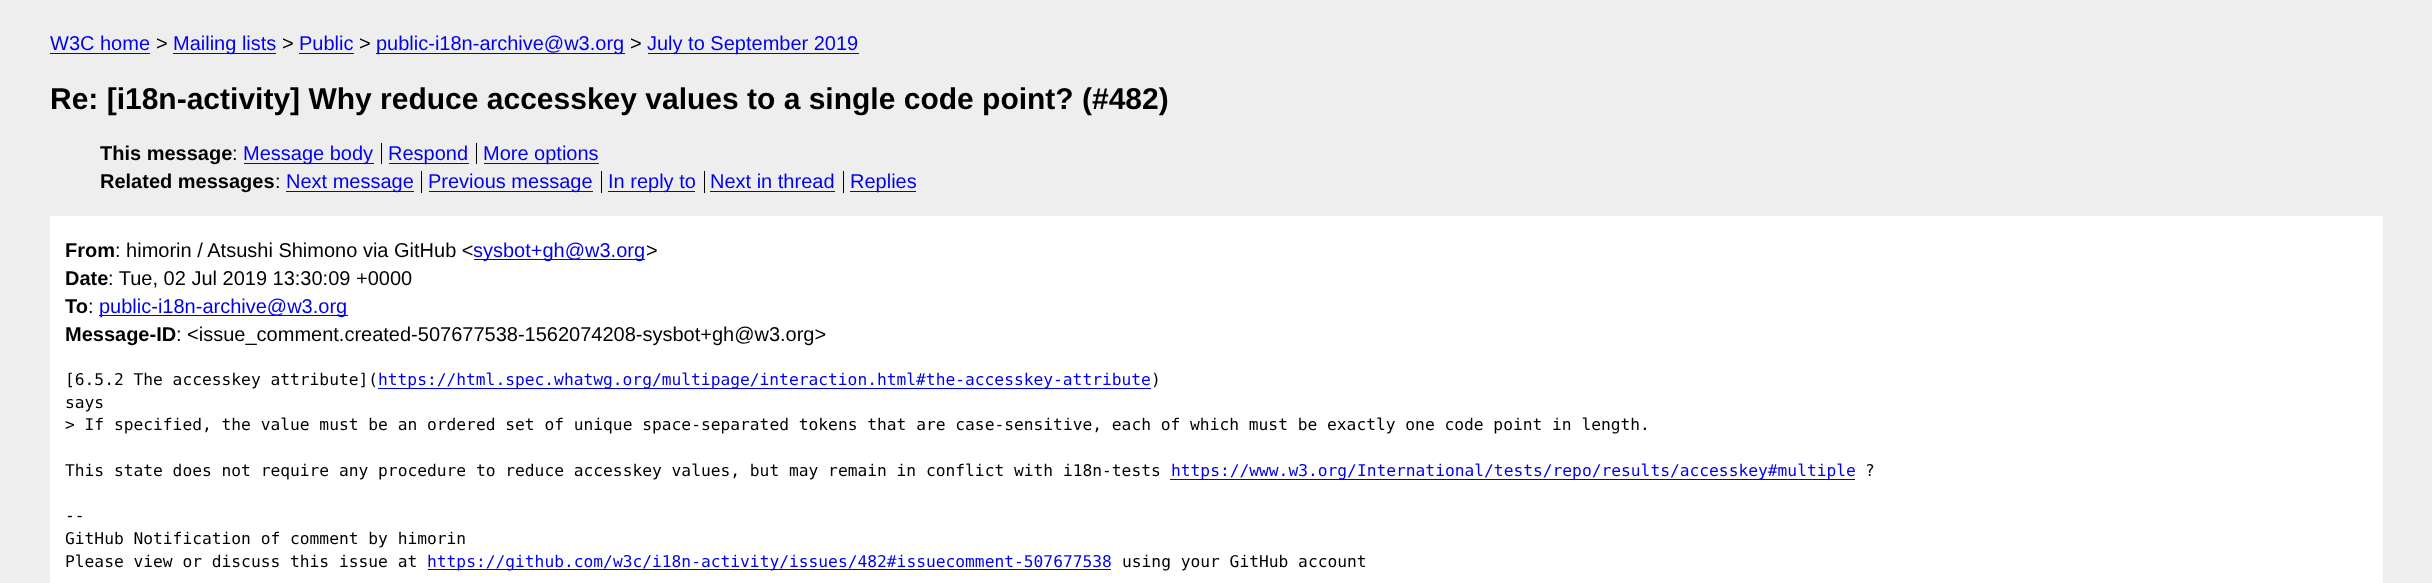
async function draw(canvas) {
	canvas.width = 2432;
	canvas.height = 583;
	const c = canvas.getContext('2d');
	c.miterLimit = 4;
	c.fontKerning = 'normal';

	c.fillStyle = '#eee';
	c.fillRect(0, 0, 2432, 583);
	c.font = '20px Liberation Sans';
	c.fillStyle = '#00e';
	c.fillText('W3C home', 50, 50);
	c.fillRect(50, 53, 100, 1);
	c.fillStyle = '#000';
	c.fillText('>', 156, 50);
	c.fillStyle = '#00e';
	c.fillRect(173, 53, 103, 1);
	c.fillText('Mailing lists', 173, 50);
	c.fillStyle = '#000';
	c.fillText('>', 282, 50);
	c.fillStyle = '#00e';
	c.fillText('Public', 299, 50);
	c.fillRect(299, 53, 55, 1);
	c.fillStyle = '#000';
	c.fillText('>', 359, 50);
	c.fillStyle = '#00e';
	c.fillRect(376, 53, 249, 1);
	c.fillText('public-i18n-archive@w3.org', 376, 50);
	c.fillStyle = '#000';
	c.fillText('>', 630, 50);
	c.fillStyle = '#00e';
	c.fillRect(648, 53, 211, 1);
	c.fillText('July to September 2019', 647, 50);
	c.font = 'bold 30px Liberation Sans';
	c.fillStyle = '#000';
	c.fillText('Re: [i18n-activity] Why reduce accesskey values to a single code point? (#482)', 50, 109);
	c.font = 'bold 20px Liberation Sans';
	c.fillText('This message', 100, 160);
	c.font = '20px Liberation Sans';
	c.fillText(':', 232, 160);
	c.fillStyle = '#00e';
	c.fillRect(244, 163, 130, 1);
	c.fillText('Message body', 243, 160);
	c.fillStyle = '#000';
	c.fillRect(381, 143, 1, 21);
	c.fillStyle = '#00e';
	c.fillRect(389, 163, 80, 1);
	c.fillText('Respond', 388, 160);
	c.fillRect(484, 163, 115, 1);
	c.fillText('More options', 483, 160);
	c.fillStyle = '#000';
	c.fillRect(476, 143, 1, 21);
	c.font = 'bold 20px Liberation Sans';
	c.fillText('Related messages', 100, 188);
	c.font = '20px Liberation Sans';
	c.fillText(':', 275, 188);
	c.fillStyle = '#00e';
	c.fillRect(286, 191, 128, 1);
	c.fillText('Next message', 286, 188);
	c.fillRect(429, 191, 164, 1);
	c.fillText('Previous message', 428, 188);
	c.fillStyle = '#000';
	c.fillRect(421, 171, 1, 22);
	c.fillStyle = '#00e';
	c.fillRect(608, 191, 87, 1);
	c.fillText('In reply to', 608, 188);
	c.fillStyle = '#000';
	c.fillRect(601, 171, 1, 22);
	c.fillStyle = '#00e';
	c.fillText('Next in thread', 710, 188);
	for (const [x, y, w, h, color] of [
		[704, 171, 1, 22, '#000'],
		[710, 191, 125, 1, '#00e'],
		[850, 191, 66, 1, '#00e'],
	]) {
		c.fillStyle = color;
		c.fillRect(x, y, w, h);
	}
	c.fillText('Replies', 850, 188);
	c.fillStyle = '#000';
	c.fillRect(843, 171, 1, 22);
	c.fillStyle = '#fff';
	c.fillRect(50, 216, 2333, 367);
	c.font = 'bold 20px Liberation Sans';
	c.fillStyle = '#000';
	c.fillText('From', 65, 257);
	c.font = '20px Liberation Sans';
	c.fillText(': himorin / Atsushi Shimono via GitHub <', 115, 257);
	c.fillStyle = '#00e';
	c.fillRect(474, 259, 171, 1);
	c.fillText('sysbot+gh@w3.org', 473, 257);
	c.fillStyle = '#000';
	c.fillText('>', 646, 257);
	c.font = 'bold 20px Liberation Sans';
	c.fillText('Date', 65, 285);
	c.font = '20px Liberation Sans';
	c.fillText(': Tue, 02 Jul 2019 13:30:09 +0000', 108, 285);
	c.font = 'bold 20px Liberation Sans';
	c.fillText('To', 65, 313);
	c.font = '20px Liberation Sans';
	c.fillText(':', 88, 313);
	c.fillStyle = '#00e';
	c.fillRect(99, 315, 249, 1);
	c.fillText('public-i18n-archive@w3.org', 99, 313);
	c.font = 'bold 20px Liberation Sans';
	c.fillStyle = '#000';
	c.fillText('Message-ID', 65, 341);
	c.font = '20px Liberation Sans';
	c.fillText(': <issue_comment.created-507677538-1562074208-sysbot+gh@w3.org>', 176, 341);
	c.font = '16.25px DejaVu Sans Mono';
	c.fillText('[6.5.2 The accesskey attribute](', 65, 385);
	c.fillStyle = '#00e';
	c.fillRect(378, 388, 773, 1);
	c.fillText('https://html.spec.whatwg.org/multipage/interaction.html#the-accesskey-attribute', 378, 385);
	c.fillStyle = '#000';
	for (const [text, x, y] of [
		[')', 1151, 385],
		['says', 65, 408],
		['> If specified, the value must be an ordered set of unique space-separated tokens that are case-sensitive, each of which must be exactly one code point in length.', 65, 430],
		['This state does not require any procedure to reduce accesskey values, but may remain in conflict with i18n-tests', 65, 476],
	]) {
		c.fillText(text, x, y);
	}
	c.fillStyle = '#00e';
	c.fillRect(1170, 479, 685, 1);
	c.fillText('https://www.w3.org/International/tests/repo/results/accesskey#multiple', 1171, 476);
	c.fillStyle = '#000';
	for (const [text, x, y] of [
		['?', 1865, 476],
		['--', 65, 521],
		['GitHub Notification of comment by himorin', 65, 544],
		['Please view or discuss this issue at', 65, 567],
	]) {
		c.fillText(text, x, y);
	}
	c.fillStyle = '#00e';
	c.fillRect(428, 569, 683, 1);
	c.fillText('https://github.com/w3c/i18n-activity/issues/482#issuecomment-507677538', 427, 567);
	c.fillStyle = '#000';
	c.fillText('using your GitHub account', 1122, 567);
}

draw(document.querySelector('canvas'));
